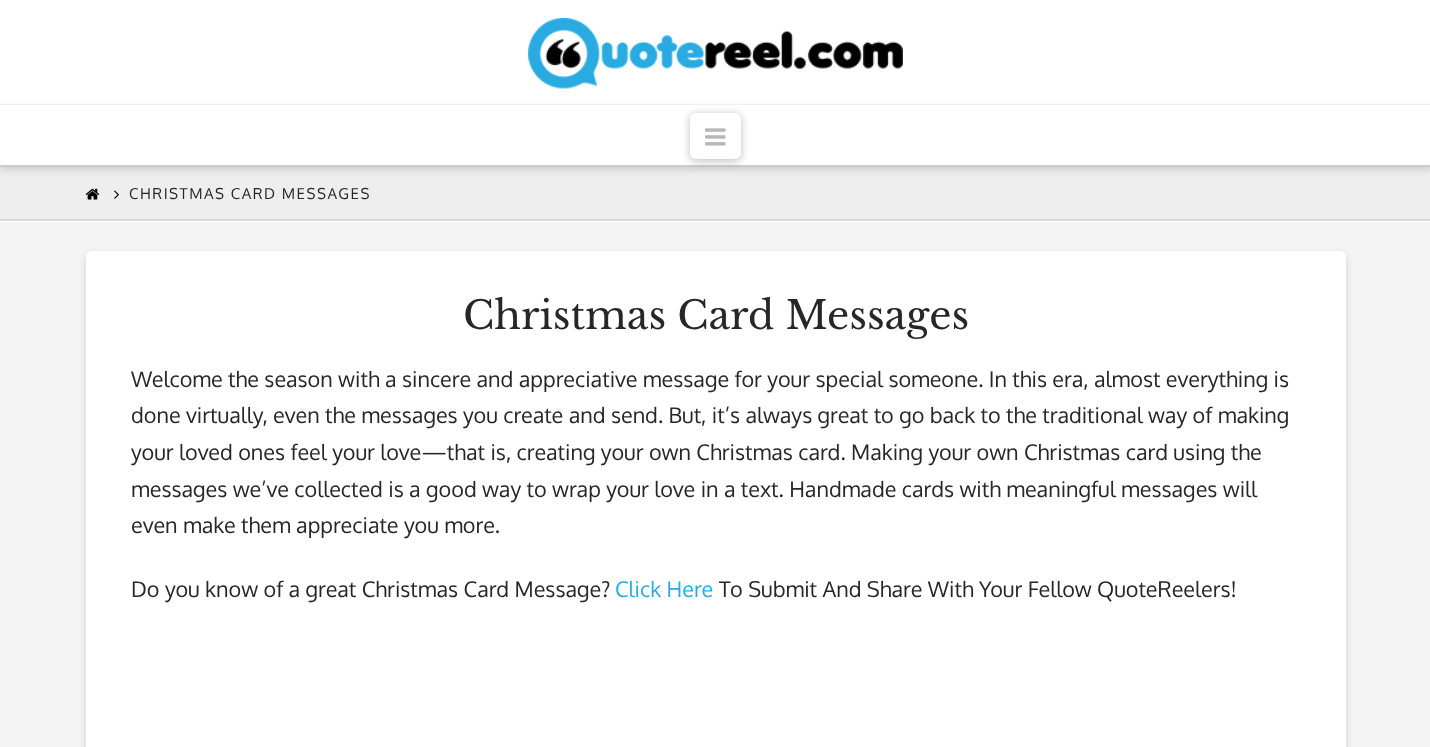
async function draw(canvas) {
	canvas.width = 1430;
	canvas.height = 747;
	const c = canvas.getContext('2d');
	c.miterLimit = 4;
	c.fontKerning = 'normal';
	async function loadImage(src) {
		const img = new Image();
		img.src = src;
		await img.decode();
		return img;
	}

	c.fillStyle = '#f3f3f3';
	c.fillRect(0, 0, 1430, 747);
	for (const [x, y, w, h, color] of [
		[0, 167, 1430, 52, '#eee'],
		[0, 219, 1430, 1, '#d6d6d6'],
		[0, 0, 1430, 104, '#fff'],
	]) {
		c.fillStyle = color;
		c.fillRect(x, y, w, h);
	}
	c.drawImage(await loadImage('img1.png'), 528, 18, 375, 71);
	c.fillStyle = '#00000021';
	c.filter = 'blur(3px)';
	c.beginPath();
	c.rect(0, 108, 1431, 62);
	c.fill();
	c.filter = 'none';
	c.fillStyle = '#fff';
	c.fillRect(0, 105, 1430, 60);
	c.fillStyle = '#ccc';
	c.fillRect(0, 165, 1430, 2);
	c.fillStyle = '#00000040';
	c.filter = 'blur(4px)';
	c.beginPath();
	c.roundRect(690, 114, 51, 47, 6);
	c.fill();
	c.filter = 'none';
	c.fillStyle = '#fff';
	c.beginPath();
	c.roundRect(690, 113, 51, 46, 6);
	c.fill();
	c.drawImage(await loadImage('img2.png'), 705, 128, 21, 18);
	c.fillStyle = '#fcfcfc';
	c.fillRect(0, 221, 1430, 1);
	c.fillStyle = '#dedede';
	c.fillRect(0, 220, 1430, 1);
	c.drawImage(await loadImage('img3.png'), 85, 188, 15, 12);
	c.drawImage(await loadImage('img4.png'), 114, 190, 5, 9);
	c.letterSpacing = '1.5px';
	c.font = '15px Oxygen';
	c.fillStyle = '#272727';
	c.fillText('CHRISTMAS CARD MESSAGES', 129, 199);
	c.fillStyle = '#00000021';
	c.filter = 'blur(3px)';
	c.beginPath();
	c.roundRect(86, 254, 1260, 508, 6);
	c.fill();
	c.filter = 'none';
	c.fillStyle = '#fff';
	c.beginPath();
	c.roundRect(86, 251, 1260, 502, 6);
	c.fill();
	c.letterSpacing = '0px';
	c.font = '38.9px Libre Baskerville';
	c.fillStyle = '#272727';
	c.fillText('Christmas Card Messages', 463, 329);
	c.font = '21.6px Oxygen';
	for (const [text, x, y] of [
		['Welcome the season with a sincere and appreciative message for your special someone. In this era, almost everything is', 131, 387],
		['done virtually, even the messages you create and send. But, it’s always great to go back to the traditional way of making', 131, 423],
		['your loved ones feel your love—that is, creating your own Christmas card. Making your own Christmas card using the', 131, 460],
		['messages we’ve collected is a good way to wrap your love in a text. Handmade cards with meaningful messages will', 131, 497],
		['even make them appreciate you more.', 131, 533],
		['Do you know of a great Christmas Card Message?', 131, 597],
	]) {
		c.fillText(text, x, y);
	}
	c.fillStyle = '#29abe2';
	c.fillText('Click Here', 615, 597);
	c.fillStyle = '#272727';
	c.fillText('To Submit And Share With Your Fellow QuoteReelers!', 719, 597);
}

draw(document.querySelector('canvas'));
